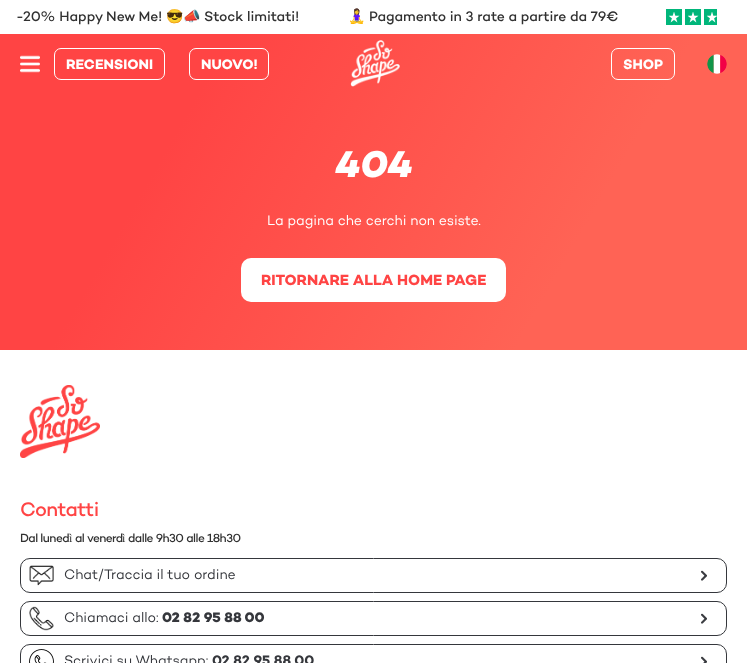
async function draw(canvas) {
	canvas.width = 747;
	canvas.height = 663;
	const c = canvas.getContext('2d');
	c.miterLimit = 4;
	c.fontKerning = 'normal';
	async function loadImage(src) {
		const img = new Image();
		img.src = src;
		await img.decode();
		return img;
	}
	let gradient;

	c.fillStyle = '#fff';
	c.fillRect(0, 0, 747, 663);
	c.font = '500 14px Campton';
	c.fillStyle = '#313131';
	c.fillText('-20% Happy New Me!', 16, 21);
	c.font = '14px Noto Color Emoji';
	c.fillText('😎📣', 166, 21);
	c.font = '500 14px Campton';
	c.fillText('Stock limitati!', 204, 21);
	c.font = '14px Noto Color Emoji';
	c.fillText('🧘‍♀', 348, 21);
	c.font = '500 14px Campton';
	c.fillText('Pagamento in 3 rate a partire da 79€', 369, 21);
	c.drawImage(await loadImage('img1.png'), 666, 9, 16, 16);
	c.drawImage(await loadImage('img1.png'), 685, 9, 16, 16);
	c.drawImage(await loadImage('img2.png'), 704, 9, 13, 16);
	gradient = c.createLinearGradient(25, -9, 722, 393);
	gradient.addColorStop(0.25, '#f44');
	gradient.addColorStop(0.75, '#ff6355');
	c.fillStyle = gradient;
	c.fillRect(0, 34, 747, 316);
	c.drawImage(await loadImage('img3.png'), 20, 55, 20, 18);
	c.beginPath();
	c.roundRect(54.5, 48.5, 110, 31, 6.5);
	c.strokeStyle = '#fff';
	c.stroke();
	c.font = 'bold 14px Campton';
	c.fillStyle = '#fff';
	c.fillText('RECENSIONI', 66, 69);
	c.beginPath();
	c.roundRect(189.5, 48.5, 79, 31, 6.5);
	c.stroke();
	c.fillText('NUOVO!', 201, 69);
	c.drawImage(await loadImage('img4.png'), 350, 40, 50, 47);
	c.beginPath();
	c.roundRect(611.5, 48.5, 63, 31, 6.5);
	c.stroke();
	c.fillText('SHOP', 623, 69);
	c.drawImage(await loadImage('img5.png'), 707, 54, 20, 20);
	c.font = 'italic 800 38px Campton';
	c.fillText('404', 335, 177);
	c.font = '14px Campton';
	c.fillText('La pagina che cerchi non esiste.', 267, 225);
	c.beginPath();
	c.roundRect(241, 258, 265, 44, 10);
	c.fill();
	c.font = 'bold 15px Campton';
	c.fillStyle = '#f44';
	c.fillText('RITORNARE ALLA HOME PAGE', 261, 285);
	c.drawImage(await loadImage('img6.png'), 20, 385, 80, 73);
	c.letterSpacing = '-0.5px';
	c.font = '500 20px Campton';
	c.fillText('Contatti', 20, 516);
	c.font = '500 12px Campton';
	c.fillStyle = '#313131';
	c.fillText('Dal luned', 20, 542);
	c.font = '12px Liberation Serif';
	c.fillText('ì', 69, 542);
	c.font = '500 12px Campton';
	c.fillText('al venerd', 75, 542);
	c.font = '12px Liberation Serif';
	c.fillText('ì', 122, 542);
	c.font = '500 12px Campton';
	c.fillText('dalle 9h30 alle 18h30', 128, 542);
	c.beginPath();
	c.roundRect(20.5, 558.5, 706, 34, 9.5);
	c.strokeStyle = '#35373c';
	c.stroke();
	c.drawImage(await loadImage('img7.png'), 29, 565, 25, 21);
	c.letterSpacing = '0px';
	c.font = '14px Campton';
	c.fillStyle = '#35373c';
	c.fillText('Chat/Traccia il tuo ordine', 64, 579);
	c.drawImage(await loadImage('img8.png'), 701, 570, 6, 11);
	c.beginPath();
	c.roundRect(20.5, 601.5, 706, 34, 9.5);
	c.stroke();
	c.drawImage(await loadImage('img9.png'), 29, 606, 25, 25);
	c.fillText('Chiamaci allo:', 64, 622);
	c.font = '800 14px Campton';
	c.fillText('02 82 95 88 00', 162, 622);
	c.drawImage(await loadImage('img8.png'), 701, 613, 6, 11);
	c.beginPath();
	c.roundRect(20.5, 644.5, 706, 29, 9.5);
	c.stroke();
	c.drawImage(await loadImage('img10.png'), 29, 649, 25, 14);
	c.font = '14px Campton';
	c.fillText('Scrivici su Whatsapp:', 64, 665);
	c.font = 'bold 14px Campton';
	c.fillText('02 82 95 88 00', 212, 665);
	c.drawImage(await loadImage('img11.png'), 701, 656, 6, 7);
}

draw(document.querySelector('canvas'));
